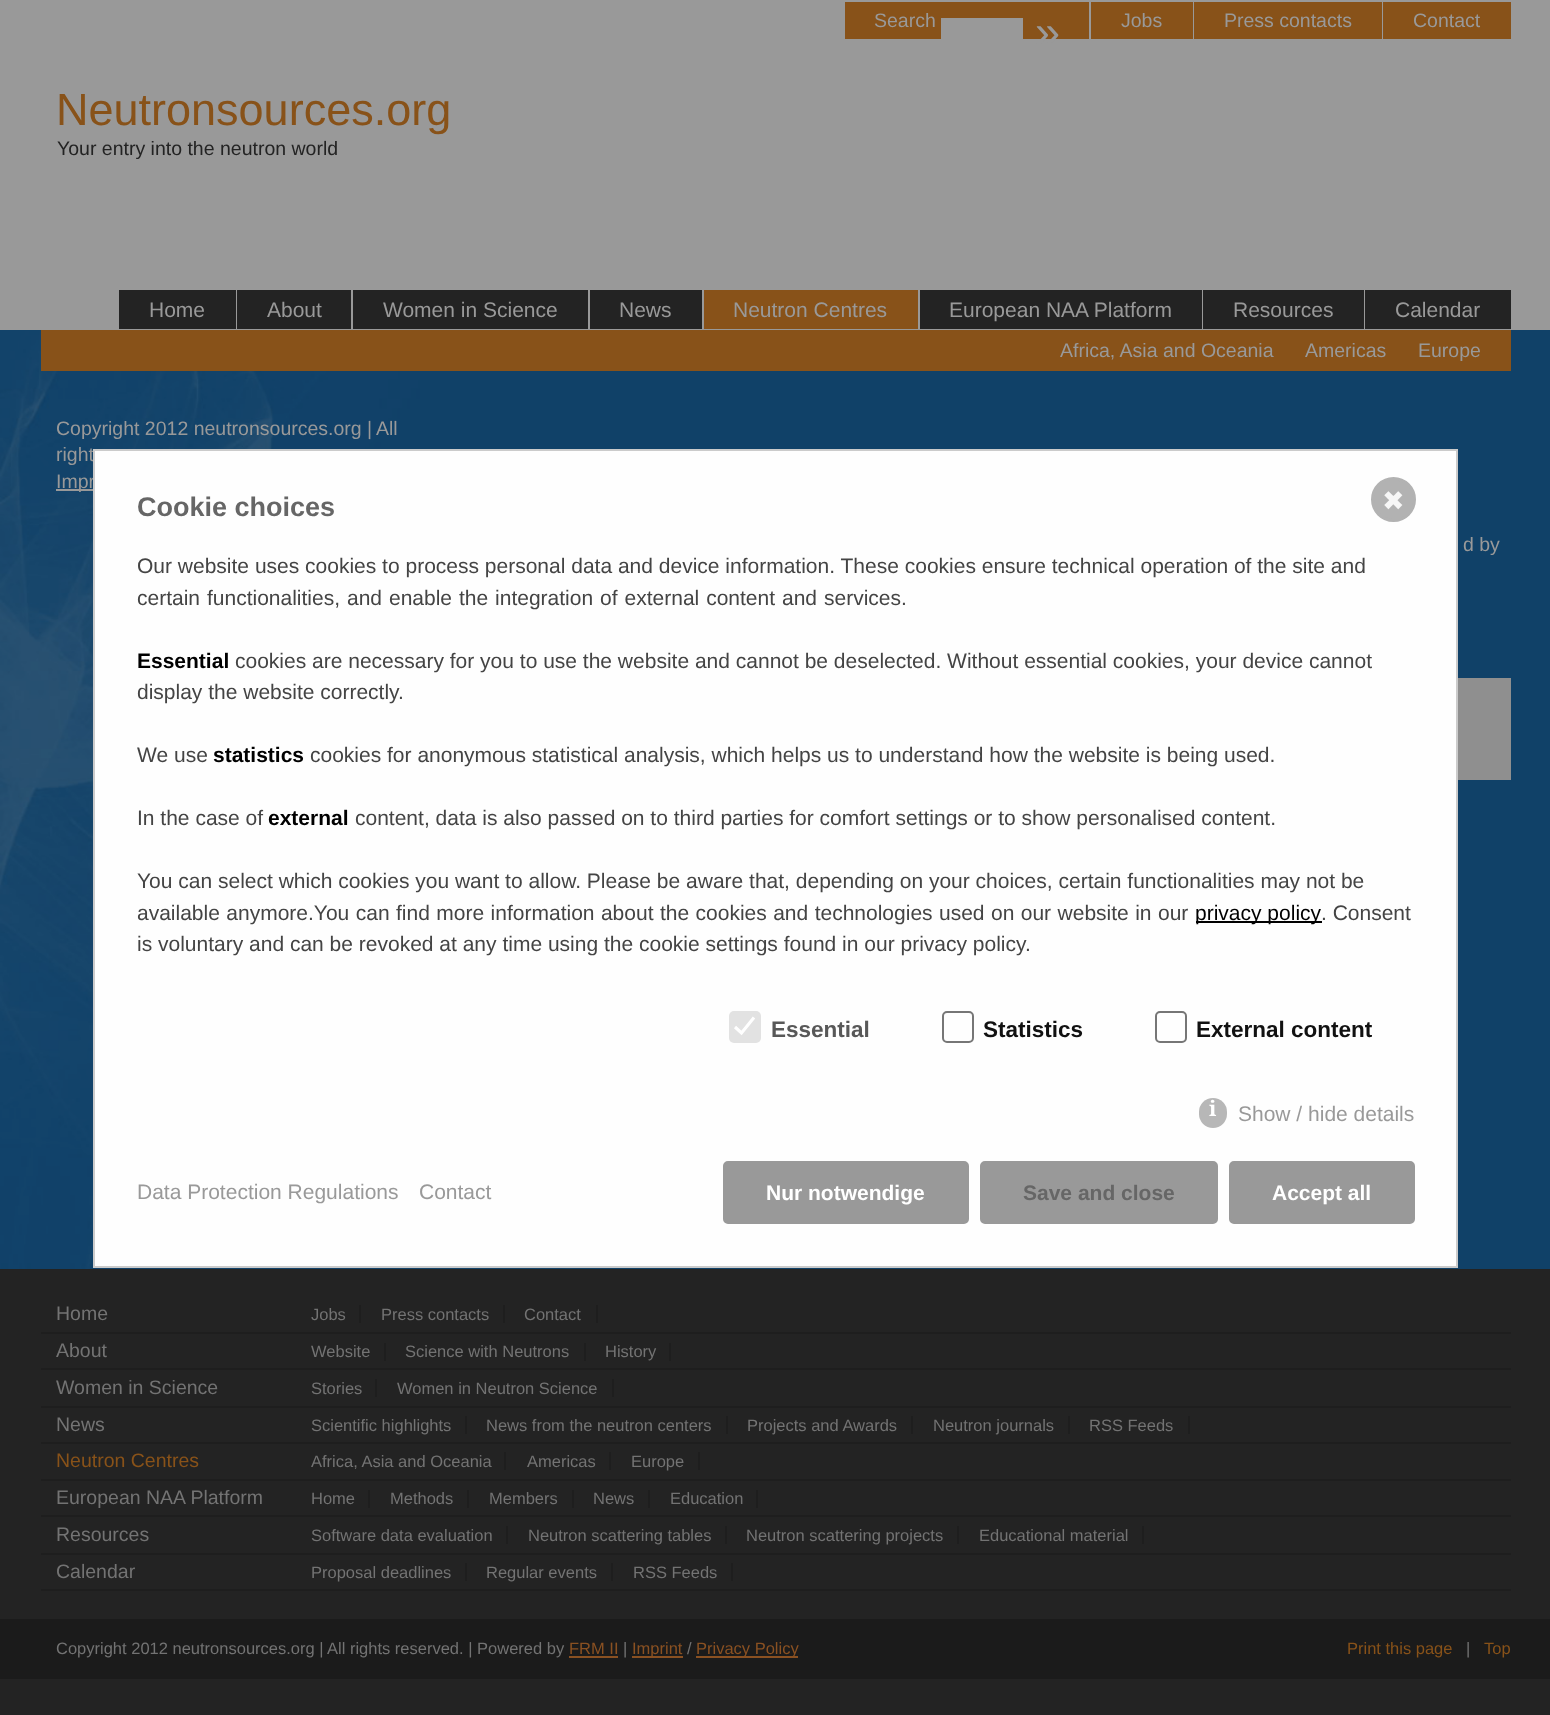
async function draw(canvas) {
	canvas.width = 1550;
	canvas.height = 1715;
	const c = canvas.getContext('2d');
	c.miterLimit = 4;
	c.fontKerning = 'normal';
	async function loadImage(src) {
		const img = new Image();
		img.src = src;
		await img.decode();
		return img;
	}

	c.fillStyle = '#fff';
	c.fillRect(0, 0, 1550, 1715);
	c.drawImage(await loadImage('img1.png'), 0, 330, 1550, 939);
	c.fillStyle = '#999';
	c.fillRect(0, 0, 1550, 330);
	c.fillStyle = '#885219';
	c.fillRect(845, 2, 244, 37);
	c.font = '19.5px Arimo';
	c.fillStyle = '#999';
	c.fillText('Search', 874, 27);
	c.fillRect(941, 18, 82, 21);
	c.font = '45px Arimo';
	c.fillText('»', 1035, 47);
	c.fillStyle = '#885219';
	c.fillRect(1091, 2, 102, 37);
	c.font = '19.5px Arimo';
	c.fillStyle = '#999';
	c.fillText('Jobs', 1121, 27);
	c.fillStyle = '#885219';
	c.fillRect(1194, 2, 188, 37);
	c.fillStyle = '#999';
	c.fillText('Press contacts', 1224, 27);
	c.fillStyle = '#885219';
	c.fillRect(1383, 2, 128, 37);
	c.fillStyle = '#999';
	c.fillText('Contact', 1413, 27);
	c.font = '45px Arimo';
	c.fillStyle = '#885219';
	c.fillText('Neutronsources.org', 56, 125);
	c.font = '19.5px Arimo';
	c.fillStyle = '#232323';
	c.fillText('Your entry into the neutron world', 57, 155);
	c.fillRect(119, 290, 117, 39);
	c.font = '21px Arimo';
	c.fillStyle = '#999';
	c.fillText('Home', 149, 317);
	c.fillStyle = '#232323';
	c.fillRect(237, 290, 114, 39);
	c.fillStyle = '#999';
	c.fillText('About', 267, 317);
	c.fillStyle = '#232323';
	c.fillRect(353, 290, 235, 39);
	c.fillStyle = '#999';
	c.fillText('Women in Science', 383, 317);
	c.fillStyle = '#232323';
	c.fillRect(590, 290, 112, 39);
	c.fillStyle = '#999';
	c.fillText('News', 619, 317);
	c.fillStyle = '#885219';
	c.fillRect(704, 290, 214, 39);
	c.fillStyle = '#999';
	c.fillText('Neutron Centres', 733, 317);
	c.fillStyle = '#232323';
	c.fillRect(920, 290, 282, 39);
	c.fillStyle = '#999';
	c.fillText('European NAA Platform', 949, 317);
	c.fillStyle = '#232323';
	c.fillRect(1203, 290, 161, 39);
	c.fillStyle = '#999';
	c.fillText('Resources', 1233, 317);
	c.fillStyle = '#232323';
	c.fillRect(1365, 290, 146, 39);
	c.fillStyle = '#999';
	c.fillText('Calendar', 1395, 317);
	c.fillStyle = '#885219';
	c.fillRect(41, 330, 1470, 41);
	c.font = '19.5px Arimo';
	c.fillStyle = '#999';
	for (const [text, x, y] of [
		['Africa, Asia and Oceania', 1060, 357],
		['Americas', 1305, 357],
		['Europe', 1418, 357],
		['Copyright 2012 neutronsources.org |', 56, 435],
		['All', 376, 435],
		['right', 56, 461],
	]) {
		c.fillText(text, x, y);
	}
	c.fillRect(56, 489, 37, 2);
	c.fillText('Impr', 56, 488);
	c.fillText('d by', 1463, 551);
	c.fillStyle = '#8f8f8f';
	c.fillRect(1458, 678, 53, 102);
	c.fillStyle = '#fefefe';
	c.beginPath();
	c.rect(94, 450, 1363, 817);
	c.fill();
	c.strokeStyle = '#cbcbcb';
	c.lineWidth = 2;
	c.stroke();
	c.fillStyle = '#b2b2b2';
	c.beginPath();
	c.arc(1393.5, 499.5, 21, 0, 2 * Math.PI);
	c.fill();
	c.strokeStyle = '#b2b2b2';
	c.lineWidth = 3;
	c.stroke();
	c.font = '27px DejaVu Sans';
	c.fillStyle = '#f6f6f6';
	c.fillText('✖', 1382, 510);
	c.font = 'bold 27px Liberation Sans';
	c.fillStyle = '#666';
	c.fillText('Cookie choices', 137, 516);
	c.font = '21px Liberation Sans';
	c.fillStyle = '#444';
	c.fillText('Our website uses cookies to process personal data and device information. These cookies ensure technical operation of the site and', 137, 573);
	c.wordSpacing = '1.1px';
	c.fillText('certain functionalities, and enable the integration of external content and services.', 137, 605);
	c.wordSpacing = '0px';
	c.font = 'bold 21px Liberation Sans';
	c.fillStyle = '#000';
	c.fillText('Essential', 137, 668);
	c.font = '21px Liberation Sans';
	c.fillStyle = '#444';
	for (const [text, x, y] of [
		['cookies are necessary for you to use the website and cannot be deselected. Without essential cookies, your device cannot', 235, 668],
		['display the website correctly.', 137, 699],
		['We use', 137, 762],
	]) {
		c.fillText(text, x, y);
	}
	c.font = 'bold 21px Liberation Sans';
	c.fillStyle = '#000';
	c.fillText('statistics', 213, 762);
	c.font = '21px Liberation Sans';
	c.fillStyle = '#444';
	c.fillText('cookies for anonymous statistical analysis, which helps us to understand how the website is being used.', 310, 762);
	c.fillText('In the case of', 137, 825);
	c.font = 'bold 21px Liberation Sans';
	c.fillStyle = '#000';
	c.fillText('external', 268, 825);
	c.font = '21px Liberation Sans';
	c.fillStyle = '#444';
	c.fillText('content, data is also passed on to third parties for comfort settings or to show personalised content.', 355, 825);
	c.fillText('You can select which cookies you want to allow. Please be aware that, depending on your choices, certain functionalities may not be', 137, 888);
	c.wordSpacing = '0.6px';
	c.fillText('available anymore.You can find more information about the cookies and technologies used on our website in our', 137, 920);
	c.fillStyle = '#000';
	c.fillRect(1196, 921, 126, 2);
	c.wordSpacing = '0px';
	c.fillText('privacy policy', 1195, 920);
	c.fillStyle = '#444';
	c.fillText('. Consent', 1321, 920);
	c.fillText('is voluntary and can be revoked at any time using the cookie settings found in our privacy policy.', 137, 951);
	c.fillStyle = '#e2e2e2';
	c.beginPath();
	c.roundRect(729, 1011, 32, 32, 5);
	c.fill();
	c.beginPath();
	c.moveTo(735, 1027);
	c.lineTo(741.5, 1033);
	c.lineTo(754, 1017.5);
	c.strokeStyle = '#fff';
	c.lineWidth = 3.1;
	c.stroke();
	c.font = 'bold 22.5px Liberation Sans';
	c.fillStyle = '#585858';
	c.fillText('Essential', 771, 1037);
	c.beginPath();
	c.roundRect(943, 1012, 30, 30, 4);
	c.strokeStyle = '#767676';
	c.lineWidth = 2;
	c.stroke();
	c.fillStyle = '#111';
	c.fillText('Statistics', 983, 1037);
	c.beginPath();
	c.roundRect(1156, 1012, 30, 30, 4);
	c.stroke();
	c.fillText('External content', 1196, 1037);
	c.fillStyle = '#b7b7b7';
	c.beginPath();
	c.roundRect(1199, 1098, 28, 30, 14);
	c.fill();
	c.font = 'bold 21px Noto Serif';
	c.fillStyle = '#fff';
	c.fillText('i', 1209, 1116);
	c.font = '21px Liberation Sans';
	c.fillStyle = '#999';
	for (const [text, x, y] of [
		['Show / hide details', 1238, 1121],
		['Data Protection Regulations', 137, 1199],
		['Contact', 419, 1199],
	]) {
		c.fillText(text, x, y);
	}
	c.beginPath();
	c.roundRect(724, 1162, 244, 61, 4);
	c.fill();
	c.strokeStyle = '#999';
	c.stroke();
	c.font = 'bold 21px Liberation Sans';
	c.fillStyle = '#fff';
	c.fillText('Nur notwendige', 766, 1200);
	c.fillStyle = '#999';
	c.beginPath();
	c.roundRect(981, 1162, 236, 61, 4);
	c.fill();
	c.stroke();
	c.fillStyle = '#666';
	c.fillText('Save and close', 1023, 1200);
	c.fillStyle = '#999';
	c.beginPath();
	c.roundRect(1230, 1162, 184, 61, 4);
	c.fill();
	c.stroke();
	c.fillStyle = '#fff';
	c.fillText('Accept all', 1272, 1200);
	c.fillStyle = '#232323';
	c.fillRect(0, 1269, 1550, 446);
	c.fillStyle = '#1e1e1e';
	c.fillRect(41, 1332, 1470, 2);
	c.font = '19.5px Arimo';
	c.fillStyle = '#737373';
	c.fillText('Home', 56, 1320);
	c.font = '16.5px Arimo';
	c.fillText('Jobs', 311, 1320);
	c.fillStyle = '#1e1e1e';
	c.fillRect(359, 1305, 2, 18);
	c.fillStyle = '#737373';
	c.fillText('Press contacts', 381, 1320);
	c.fillStyle = '#1e1e1e';
	c.fillRect(503, 1305, 2, 18);
	c.fillStyle = '#737373';
	c.fillText('Contact', 524, 1320);
	c.fillStyle = '#1e1e1e';
	c.fillRect(596, 1305, 2, 18);
	c.fillRect(41, 1368, 1470, 2);
	c.font = '19.5px Arimo';
	c.fillStyle = '#737373';
	c.fillText('About', 56, 1357);
	c.font = '16.5px Arimo';
	c.fillText('Website', 311, 1357);
	c.fillStyle = '#1e1e1e';
	c.fillRect(384, 1343, 2, 18);
	c.fillStyle = '#737373';
	c.fillText('Science with Neutrons', 405, 1357);
	c.fillStyle = '#1e1e1e';
	c.fillRect(584, 1343, 2, 18);
	c.fillStyle = '#737373';
	c.fillText('History', 605, 1357);
	c.fillStyle = '#1e1e1e';
	c.fillRect(669, 1343, 2, 18);
	c.fillRect(41, 1406, 1470, 2);
	c.font = '19.5px Arimo';
	c.fillStyle = '#737373';
	c.fillText('Women in Science', 56, 1394);
	c.font = '16.5px Arimo';
	c.fillText('Stories', 311, 1394);
	c.fillStyle = '#1e1e1e';
	c.fillRect(375, 1379, 2, 18);
	c.fillStyle = '#737373';
	c.fillText('Women in Neutron Science', 397, 1394);
	c.fillStyle = '#1e1e1e';
	c.fillRect(612, 1379, 2, 18);
	c.fillRect(41, 1442, 1470, 2);
	c.font = '19.5px Arimo';
	c.fillStyle = '#737373';
	c.fillText('News', 56, 1431);
	c.font = '16.5px Arimo';
	c.fillText('Scientific highlights', 311, 1431);
	c.fillStyle = '#1e1e1e';
	c.fillRect(465, 1416, 2, 18);
	c.fillStyle = '#737373';
	c.fillText('News from the neutron centers', 486, 1431);
	c.fillStyle = '#1e1e1e';
	c.fillRect(726, 1416, 2, 18);
	c.fillStyle = '#737373';
	c.fillText('Projects and Awards', 747, 1431);
	c.fillStyle = '#1e1e1e';
	c.fillRect(911, 1416, 2, 18);
	c.fillStyle = '#737373';
	c.fillText('Neutron journals', 933, 1431);
	c.fillStyle = '#1e1e1e';
	c.fillRect(1068, 1416, 2, 18);
	c.fillStyle = '#737373';
	c.fillText('RSS Feeds', 1089, 1431);
	c.fillStyle = '#1e1e1e';
	c.fillRect(1188, 1416, 2, 18);
	c.fillRect(41, 1479, 1470, 2);
	c.font = '19.5px Arimo';
	c.fillStyle = '#885219';
	c.fillText('Neutron Centres', 56, 1467);
	c.font = '16.5px Arimo';
	c.fillStyle = '#737373';
	c.fillText('Africa, Asia and Oceania', 311, 1467);
	c.fillStyle = '#1e1e1e';
	c.fillRect(504, 1452, 2, 18);
	c.fillStyle = '#737373';
	c.fillText('Americas', 527, 1467);
	c.fillStyle = '#1e1e1e';
	c.fillRect(609, 1452, 2, 18);
	c.fillStyle = '#737373';
	c.fillText('Europe', 631, 1467);
	c.fillStyle = '#1e1e1e';
	c.fillRect(698, 1452, 2, 18);
	c.fillRect(41, 1515, 1470, 2);
	c.font = '19.5px Arimo';
	c.fillStyle = '#737373';
	c.fillText('European NAA Platform', 56, 1504);
	c.font = '16.5px Arimo';
	c.fillText('Home', 311, 1504);
	c.fillStyle = '#1e1e1e';
	c.fillRect(368, 1490, 2, 18);
	c.fillStyle = '#737373';
	c.fillText('Methods', 390, 1504);
	c.fillStyle = '#1e1e1e';
	c.fillRect(467, 1490, 2, 18);
	c.fillStyle = '#737373';
	c.fillText('Members', 489, 1504);
	c.fillStyle = '#1e1e1e';
	c.fillRect(572, 1490, 2, 18);
	c.fillStyle = '#737373';
	c.fillText('News', 593, 1504);
	c.fillStyle = '#1e1e1e';
	c.fillRect(648, 1490, 2, 18);
	c.fillStyle = '#737373';
	c.fillText('Education', 670, 1504);
	c.fillStyle = '#1e1e1e';
	c.fillRect(756, 1490, 2, 18);
	c.fillRect(41, 1553, 1470, 2);
	c.font = '19.5px Arimo';
	c.fillStyle = '#737373';
	c.fillText('Resources', 56, 1541);
	c.font = '16.5px Arimo';
	c.fillText('Software data evaluation', 311, 1541);
	c.fillStyle = '#1e1e1e';
	c.fillRect(506, 1526, 2, 18);
	c.fillStyle = '#737373';
	c.fillText('Neutron scattering tables', 528, 1541);
	c.fillStyle = '#1e1e1e';
	c.fillRect(725, 1526, 2, 18);
	c.fillStyle = '#737373';
	c.fillText('Neutron scattering projects', 746, 1541);
	c.fillStyle = '#1e1e1e';
	c.fillRect(957, 1526, 2, 18);
	c.fillStyle = '#737373';
	c.fillText('Educational material', 979, 1541);
	c.fillStyle = '#1e1e1e';
	c.fillRect(1142, 1526, 2, 18);
	c.fillRect(41, 1589, 1470, 2);
	c.font = '19.5px Arimo';
	c.fillStyle = '#737373';
	c.fillText('Calendar', 56, 1578);
	c.font = '16.5px Arimo';
	c.fillText('Proposal deadlines', 311, 1578);
	c.fillStyle = '#1e1e1e';
	c.fillRect(465, 1563, 2, 18);
	c.fillStyle = '#737373';
	c.fillText('Regular events', 486, 1578);
	c.fillStyle = '#1e1e1e';
	c.fillRect(611, 1563, 2, 18);
	c.fillStyle = '#737373';
	c.fillText('RSS Feeds', 633, 1578);
	c.fillStyle = '#1e1e1e';
	c.fillRect(731, 1563, 2, 18);
	c.fillStyle = '#1b1b1b';
	c.fillRect(0, 1619, 1550, 60);
	c.fillStyle = '#737373';
	c.fillText('Copyright 2012 neutronsources.org |', 56, 1654);
	c.fillText('All rights reserved. | Powered by', 327, 1654);
	c.fillStyle = '#8a5122';
	c.fillText('FRM II', 569, 1654);
	c.fillRect(569, 1656, 49, 2);
	c.fillStyle = '#737373';
	c.fillText('|', 623, 1654);
	c.fillStyle = '#8a5122';
	c.fillRect(632, 1656, 51, 2);
	c.fillText('Imprint', 632, 1654);
	c.fillStyle = '#737373';
	c.fillText('/', 687, 1654);
	c.fillStyle = '#8a5122';
	c.fillRect(696, 1656, 102, 2);
	c.fillText('Privacy Policy', 696, 1654);
	c.fillStyle = '#885219';
	c.fillText('Print this page', 1347, 1654);
	c.fillStyle = '#737373';
	c.fillText('|', 1466, 1654);
	c.fillStyle = '#885219';
	c.fillText('Top', 1484, 1654);
}

draw(document.querySelector('canvas'));
